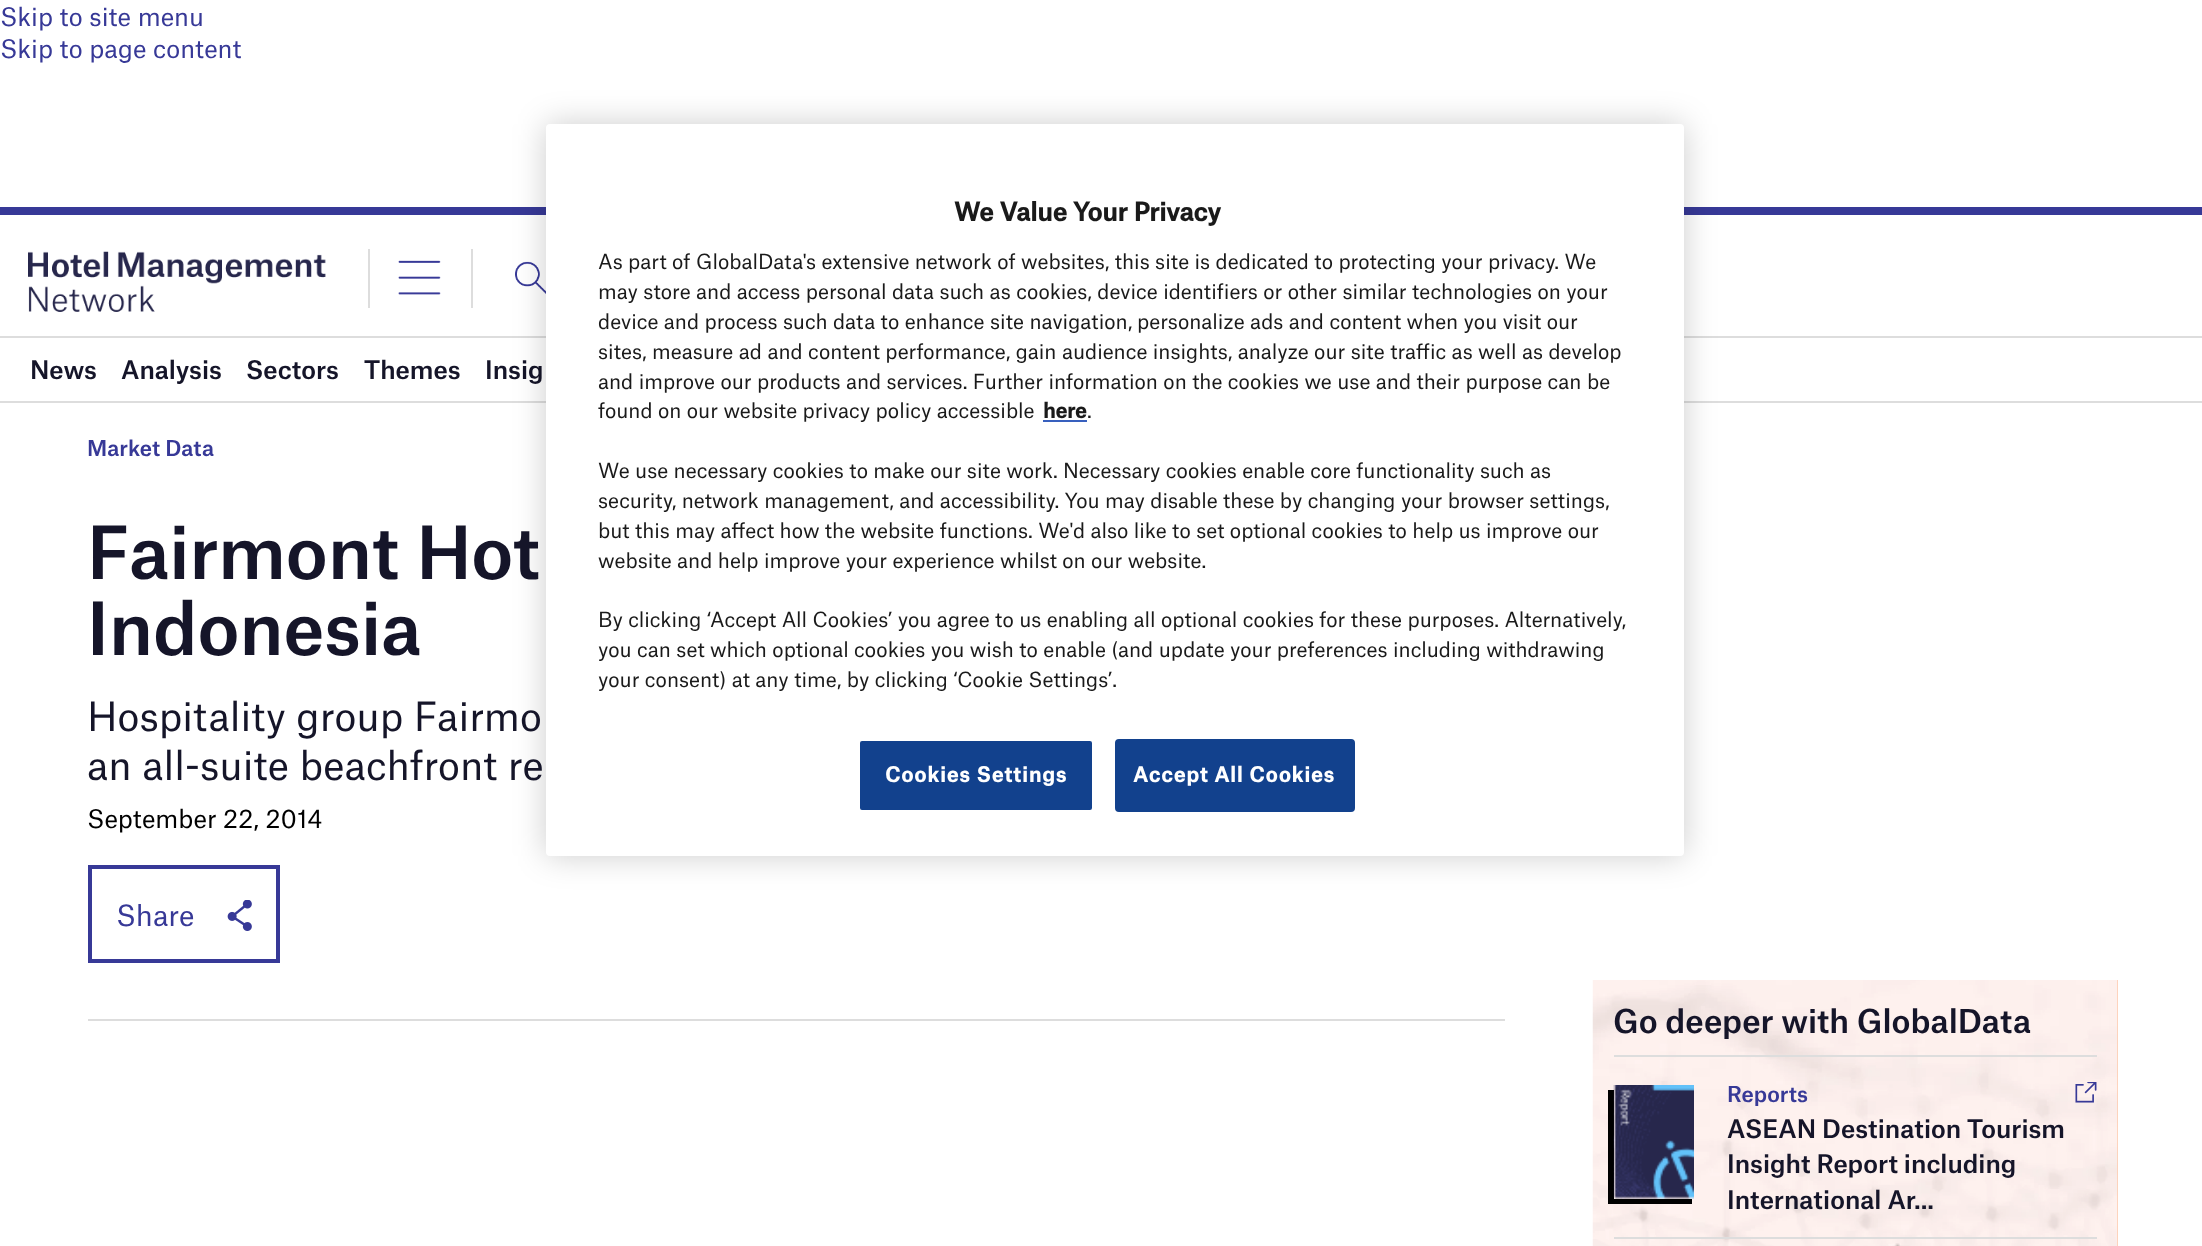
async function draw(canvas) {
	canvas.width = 2202;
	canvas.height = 1246;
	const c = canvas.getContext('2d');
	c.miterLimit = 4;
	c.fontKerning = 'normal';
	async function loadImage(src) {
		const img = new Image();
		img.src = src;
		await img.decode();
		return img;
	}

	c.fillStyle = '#fff';
	c.fillRect(0, 0, 2202, 1246);
	c.font = '24.5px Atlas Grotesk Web';
	c.fillStyle = '#373997';
	c.fillText('Skip to site menu', 0, 26);
	c.fillText('Skip to page content', 0, 58);
	c.fillRect(0, 207, 2202, 8);
	c.drawImage(await loadImage('img1.png'), 28, 251, 298, 61);
	c.drawImage(await loadImage('img2.png'), 398, 260, 43, 35);
	c.fillStyle = '#ddd';
	c.fillRect(471, 249, 2, 59);
	c.fillRect(368, 249, 2, 59);
	c.drawImage(await loadImage('img3.png'), 515, 261, 31, 33);
	c.fillRect(0, 336, 2202, 2);
	c.fillRect(0, 401, 2202, 2);
	c.font = '500 24.5px Atlas Grotesk Web';
	c.fillStyle = '#151529';
	for (const [text, x, y] of [
		['News', 30, 379],
		['Analysis', 121, 379],
		['Sectors', 246, 379],
		['Themes', 364, 379],
		['Insig', 485, 379],
	]) {
		c.fillText(text, x, y);
	}
	c.fillStyle = '#00000033';
	c.filter = 'blur(16px)';
	c.beginPath();
	c.roundRect(546, 124, 1138, 732, 4);
	c.fill();
	c.filter = 'none';
	c.fillStyle = '#fff';
	c.beginPath();
	c.roundRect(546, 124, 1138, 732, 4);
	c.fill();
	c.font = 'bold 24.5px Atlas Grotesk Web';
	c.fillStyle = '#1a1a1a';
	c.fillText('We Value Your Privacy', 954, 221);
	c.font = '19.92px Atlas Grotesk Web';
	for (const [text, x, y] of [
		['As part of GlobalData\'s extensive network of websites, this site is dedicated to protecting your privacy. We', 598, 269],
		['may store and access personal data such as cookies, device identifiers or other similar technologies on your', 598, 299],
		['device and process such data to enhance site navigation,', 598, 329],
		['personalize ads and content when you visit our', 1137, 329],
		['sites, measure ad and content performance, gain audience insights, analyze our site traffic as well as develop', 598, 359],
		['and improve our products and services. Further information on the cookies we use and their purpose can be', 598, 389],
		['found on our website privacy policy accessible', 598, 418],
	]) {
		c.fillText(text, x, y);
	}
	c.font = 'bold 19.92px Atlas Grotesk Web';
	c.fillText('here', 1043, 418);
	c.fillStyle = '#3860be';
	c.fillRect(1043, 420, 44, 2);
	c.font = '19.92px Atlas Grotesk Web';
	c.fillStyle = '#1a1a1a';
	for (const [text, x, y] of [
		['.', 1087, 418],
		['We use necessary cookies to make our site work.', 598, 478],
		['Necessary cookies enable core functionality such as', 1063, 478],
		['security, network management, and accessibility. You may disable these by changing your browser settings,', 598, 508],
		['but this may affect how the website functions. We\'d also like to set optional cookies to help us improve our', 598, 538],
		['website and help improve your experience whilst on our website.', 598, 568],
		['By clicking ‘Accept All Cookies’ you agree to us enabling all optional cookies for these purposes. Alternatively,', 598, 627],
		['you can set which optional cookies you wish to enable (and update your preferences including withdrawing', 598, 657],
		['your consent) at any time, by clicking ‘Cookie Settings’.', 598, 687],
	]) {
		c.fillText(text, x, y);
	}
	c.fillStyle = '#12418d';
	c.beginPath();
	c.roundRect(859, 740, 234, 71, 3);
	c.fill();
	c.strokeStyle = '#fff';
	c.lineWidth = 2;
	c.stroke();
	c.letterSpacing = '1px';
	c.font = 'bold 19.92px Atlas Grotesk Web';
	c.fillStyle = '#fff';
	c.fillText('Cookies Settings', 885, 782);
	c.fillStyle = '#12418d';
	c.beginPath();
	c.roundRect(1116, 740, 238, 71, 3);
	c.fill();
	c.strokeStyle = '#12418d';
	c.stroke();
	c.fillStyle = '#fff';
	c.fillText('Accept All Cookies', 1133, 782);
	c.letterSpacing = '0px';
	c.font = '500 21px Atlas Grotesk Web';
	c.fillStyle = '#373997';
	c.fillText('Market Data', 87, 456);
	c.font = '500 70px Atlas Grotesk Web';
	c.fillStyle = '#151529';
	c.fillText('Fairmont Hot', 87, 579);
	c.fillText('Indonesia', 87, 655);
	c.font = '38.5px Atlas Grotesk Web';
	c.fillText('Hospitality group Fairmo', 87, 731);
	c.fillText('an all-suite beachfront re', 87, 780);
	c.font = '24.5px Atlas Grotesk Web';
	c.fillStyle = '#000';
	c.fillText('September 22, 2014', 87, 828);
	c.fillStyle = '#ddd';
	c.fillRect(88, 1019, 1417, 2);
	c.strokeStyle = '#373997';
	c.lineWidth = 4;
	c.strokeRect(90, 867, 188, 94);
	c.font = '28px Atlas Grotesk Web';
	c.fillStyle = '#373997';
	c.fillText('Share', 116, 926);
	c.drawImage(await loadImage('img4.png'), 227, 900, 25, 31);
	c.fillStyle = '#fecaad';
	c.fillRect(2117, 980, 1, 266);
	c.drawImage(await loadImage('img5.png'), 1592, 980, 526, 266);
	c.fillStyle = '#ddd';
	c.fillRect(1614, 1055, 483, 2);
	c.font = '500 31.5px Atlas Grotesk Web';
	c.fillStyle = '#151529';
	c.fillText('Go deeper with GlobalData', 1613, 1033);
	c.fillStyle = '#ddd';
	c.fillRect(1614, 1237, 483, 2);
	c.fillStyle = '#000';
	c.beginPath();
	c.moveTo(1608, 1090);
	c.lineTo(1608, 1204);
	c.lineTo(1692, 1204);
	c.lineTo(1692, 1199);
	c.lineTo(1614, 1199);
	c.lineTo(1614, 1090);
	c.closePath();
	c.fill();
	c.drawImage(await loadImage('img6.png'), 1613, 1085, 81, 114);
	c.font = '500 21px Atlas Grotesk Web';
	c.fillStyle = '#373997';
	c.fillText('Reports', 1727, 1102);
	c.drawImage(await loadImage('img7.png'), 2075, 1082, 22, 21);
	c.font = '500 24.5px Atlas Grotesk Web';
	c.fillStyle = '#151529';
	for (const [text, x, y] of [
		['ASEAN Destination Tourism', 1727, 1138],
		['Insight Report including', 1727, 1173],
		['International Ar...', 1727, 1209],
	]) {
		c.fillText(text, x, y);
	}
}

draw(document.querySelector('canvas'));
